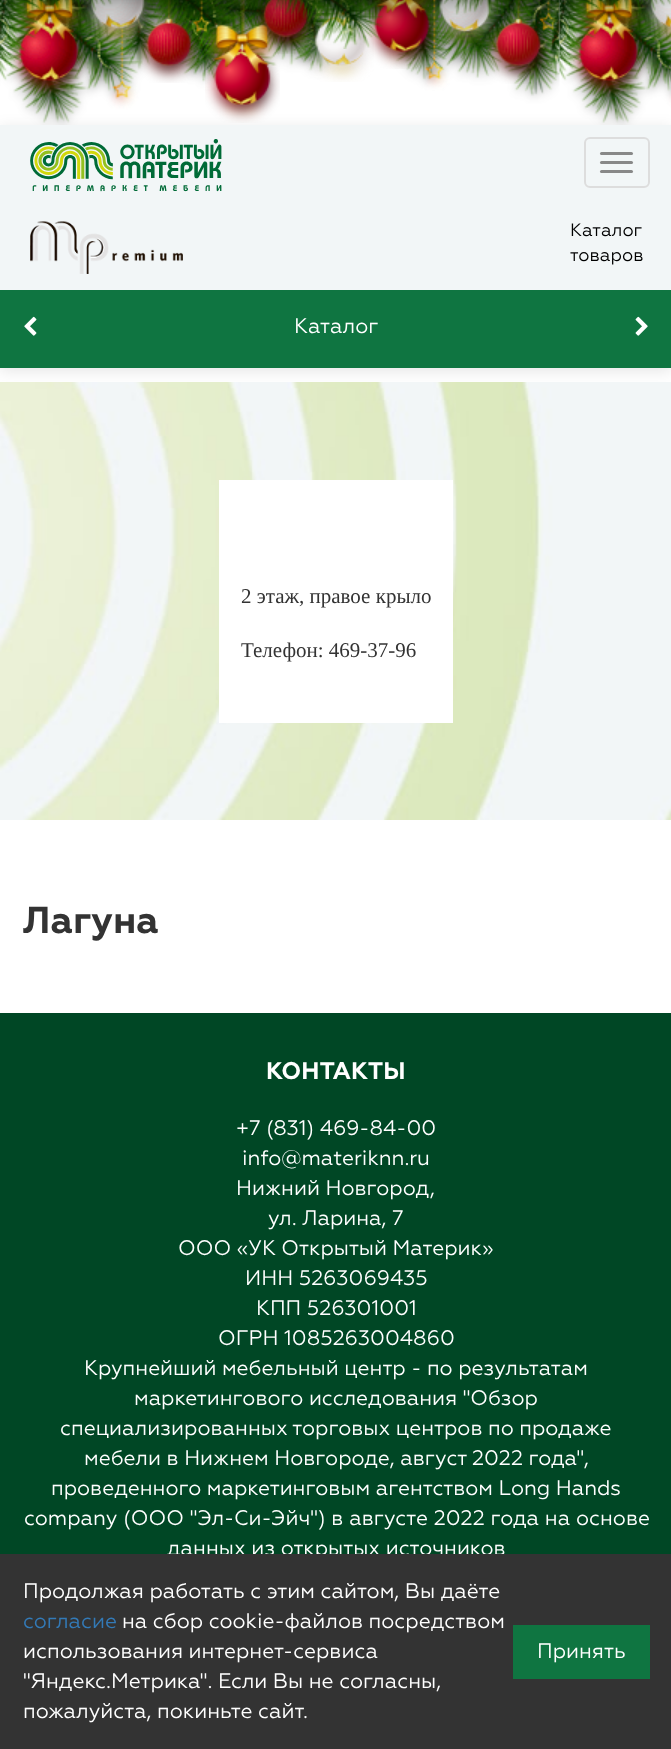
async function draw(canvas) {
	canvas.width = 671;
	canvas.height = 1749;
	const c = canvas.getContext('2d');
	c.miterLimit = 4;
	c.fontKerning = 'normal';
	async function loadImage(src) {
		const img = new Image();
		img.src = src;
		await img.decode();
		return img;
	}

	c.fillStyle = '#fff';
	c.fillRect(0, 0, 671, 1749);
	c.fillStyle = '#0000001a';
	c.filter = 'blur(7.5px)';
	c.beginPath();
	c.rect(0, 128, 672, 243);
	c.fill();
	c.filter = 'none';
	c.drawImage(await loadImage('img1.png'), 0, 0, 671, 125);
	c.drawImage(await loadImage('img3.png'), 10, 0, 78, 97);
	c.drawImage(await loadImage('img2.png'), 0, 0, 38, 81);
	c.drawImage(await loadImage('img5.png'), 81, 0, 73, 44);
	c.drawImage(await loadImage('img4.png'), 37, 0, 76, 14);
	c.drawImage(await loadImage('img6.png'), 137, 0, 62, 83);
	c.drawImage(await loadImage('img7.png'), 205, 0, 75, 123);
	c.drawImage(await loadImage('img8.png'), 255, 0, 61, 54);
	c.drawImage(await loadImage('img10.png'), 306, 0, 68, 82);
	c.drawImage(await loadImage('img9.png'), 265, 0, 43, 20);
	c.drawImage(await loadImage('img12.png'), 365, 0, 73, 69);
	c.drawImage(await loadImage('img11.png'), 307, 0, 76, 49);
	c.drawImage(await loadImage('img13.png'), 431, 0, 69, 47);
	c.drawImage(await loadImage('img15.png'), 487, 0, 63, 84);
	c.drawImage(await loadImage('img14.png'), 443, 0, 90, 16);
	c.drawImage(await loadImage('img16.png'), 550, 0, 10, 78);
	c.drawImage(await loadImage('img18.png'), 569, 0, 78, 97);
	c.drawImage(await loadImage('img17.png'), 559, 0, 38, 81);
	c.drawImage(await loadImage('img20.png'), 640, 0, 31, 44);
	c.drawImage(await loadImage('img19.png'), 597, 0, 74, 14);
	c.fillStyle = '#000000bf';
	c.filter = 'blur(22.5px)';
	c.beginPath();
	c.rect(0, -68, 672, 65);
	c.fill();
	c.filter = 'none';
	c.fillStyle = '#f2f6f7';
	c.fillRect(0, 125, 671, 165);
	c.drawImage(await loadImage('img21.png'), 30, 139, 192, 53);
	c.beginPath();
	c.roundRect(585, 138, 64, 49, 5);
	c.strokeStyle = '#ddd';
	c.lineWidth = 2;
	c.stroke();
	c.fillStyle = '#888';
	c.beginPath();
	c.roundRect(600, 152, 33, 3, 1.5);
	c.fill();
	c.beginPath();
	c.roundRect(600, 161, 33, 3, 1.5);
	c.fill();
	c.beginPath();
	c.roundRect(600, 170, 33, 3, 1.5);
	c.fill();
	c.drawImage(await loadImage('img22.png'), 30, 221, 153, 53);
	c.font = '18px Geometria';
	c.fillStyle = '#000';
	c.fillText('Каталог', 570, 236);
	c.fillText('товаров', 570, 261);
	c.fillStyle = '#0f7541';
	c.fillRect(0, 290, 671, 78);
	c.drawImage(await loadImage('img23.png'), 24, 316, 13, 20);
	c.drawImage(await loadImage('img24.png'), 635, 316, 13, 20);
	c.font = '21px Geometria';
	c.fillStyle = '#fff';
	c.fillText('Каталог', 294, 333);
	c.drawImage(await loadImage('img25.png'), 0, 382, 671, 438);
	c.fillRect(219, 480, 234, 243);
	c.font = '21px Liberation Serif';
	c.fillStyle = '#333';
	c.fillText('2 этаж, правое крыло', 241, 603);
	c.fillText('Телефон: 469-37-96', 241, 657);
	c.font = 'bold 37.5px Geometria';
	c.fillText('Лагуна', 23, 933);
	c.fillStyle = '#004725';
	c.fillRect(0, 1013, 671, 541);
	c.font = 'bold 24px Geometria';
	c.fillStyle = '#fff';
	c.fillText('КОНТАКТЫ', 266, 1079);
	c.font = '21px Geometria';
	for (const [text, x, y] of [
		['+7 (831) 469-84-00', 236, 1135],
		['info@materiknn.ru', 242, 1165],
		['Нижний Новгород,', 236, 1195],
		['ул. Ларина, 7', 268, 1225],
		['ООО «УК Открытый Материк»', 178, 1255],
		['ИНН 5263069435', 245, 1285],
		['КПП 526301001', 256, 1315],
		['ОГРН 1085263004860', 218, 1345],
		['Крупнейший мебельный центр - по результатам', 84, 1375],
		['маркетингового исследования "Обзор', 134, 1405],
		['специализированных торговых центров по продаже', 60, 1435],
		['мебели в Нижнем Новгороде, август 2022 года",', 84, 1465],
		['проведенного маркетинговым агентством Long Hands', 51, 1495],
	]) {
		c.fillText(text, x, y);
	}
	c.wordSpacing = '0.25px';
	c.fillText('company (ООО "Эл-Си-Эйч") в августе 2022 года на основе', 24, 1525);
	c.wordSpacing = '0px';
	c.fillText('данных из открытых источников', 167, 1555);
	c.fillStyle = '#333';
	c.fillRect(0, 1554, 671, 195);
	c.fillStyle = '#fff';
	c.fillText('Продолжая работать с этим сайтом, Вы даёте', 23, 1598);
	c.fillStyle = '#337ab7';
	c.fillText('согласие', 23, 1628);
	c.fillStyle = '#fff';
	for (const [text, x, y] of [
		['на сбор cookie-файлов посредством', 122, 1628],
		['использования интернет-сервиса', 23, 1658],
		['"Яндекс.Метрика". Если Вы не согласны,', 23, 1688],
		['пожалуйста, покиньте сайт.', 23, 1718],
	]) {
		c.fillText(text, x, y);
	}
	c.fillStyle = '#0f7541';
	c.fillRect(513, 1625, 137, 54);
	c.fillStyle = '#fff';
	c.fillText('Принять', 537, 1658);
}

draw(document.querySelector('canvas'));
